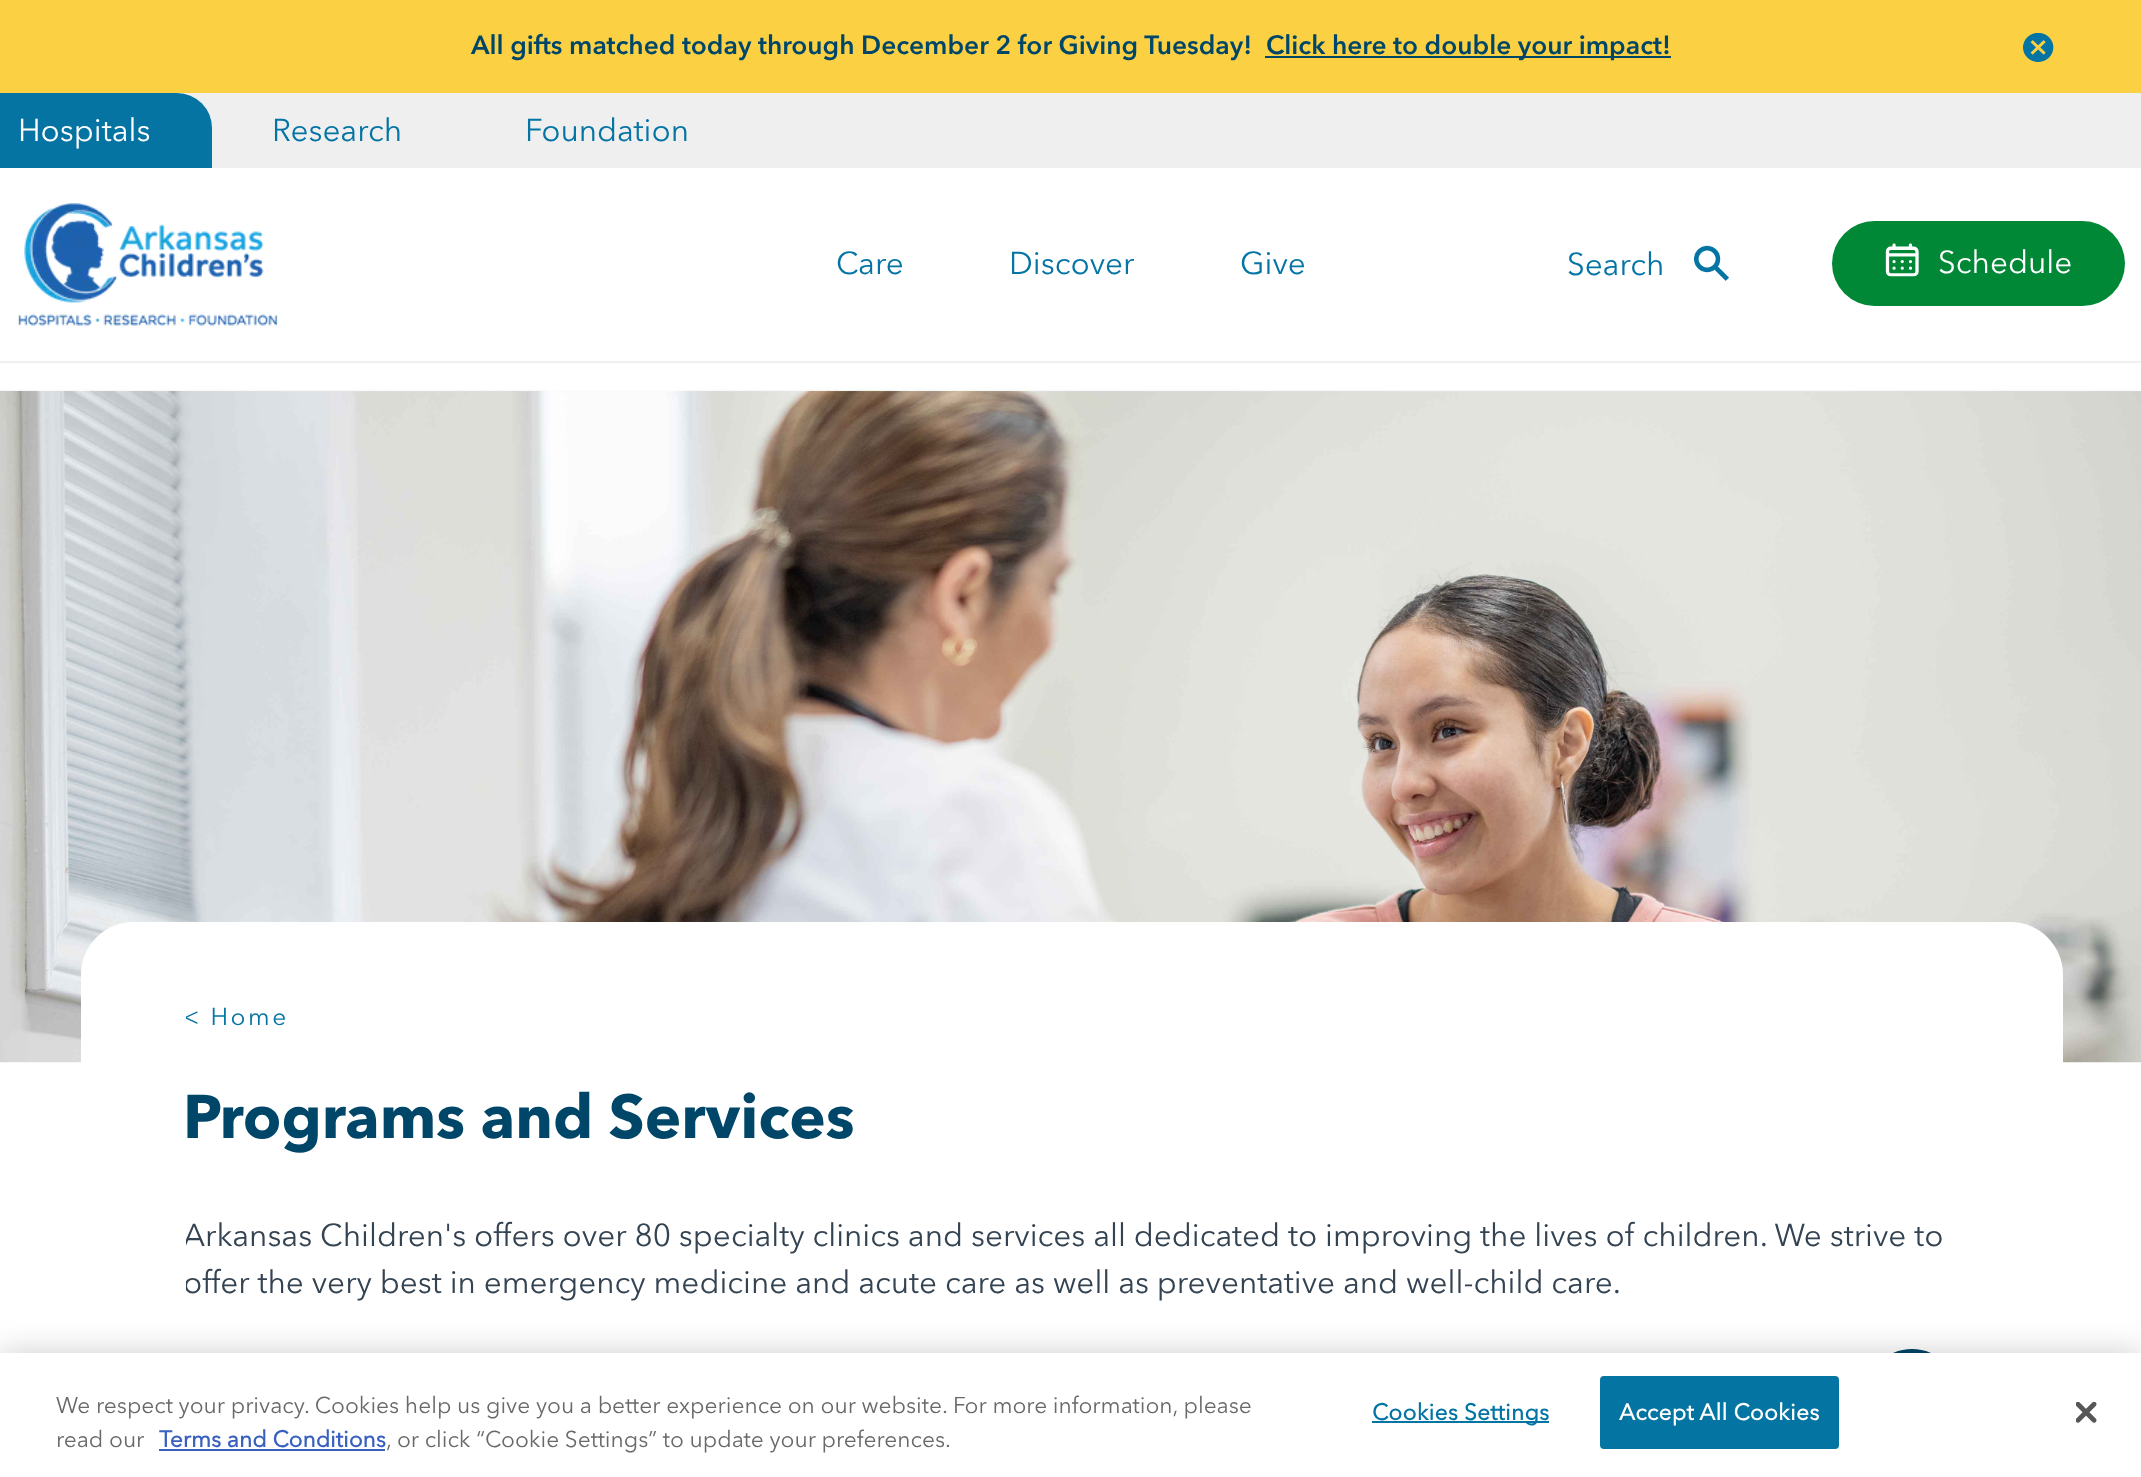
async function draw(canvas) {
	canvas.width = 2141;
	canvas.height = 1477;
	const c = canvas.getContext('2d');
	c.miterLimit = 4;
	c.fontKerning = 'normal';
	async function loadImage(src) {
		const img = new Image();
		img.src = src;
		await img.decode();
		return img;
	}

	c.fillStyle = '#fff';
	c.fillRect(0, 0, 2141, 1477);
	c.fillStyle = '#f0f0f0';
	c.fillRect(0, 361, 2141, 2);
	c.fillStyle = '#fbd043';
	c.fillRect(0, 0, 2141, 93);
	c.font = 'bold 26.25px "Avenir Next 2"';
	c.fillStyle = '#004668';
	c.fillText('All gifts matched today through December 2 for Giving Tuesday!', 471, 54);
	c.fillRect(1265, 56, 406, 2);
	c.fillText('Click here to double your impact!', 1266, 54);
	c.drawImage(await loadImage('img1.png'), 2023, 33, 31, 29);
	c.fillStyle = '#efefef';
	c.fillRect(177, 93, 1964, 75);
	c.fillStyle = '#0674a3';
	c.beginPath();
	c.roundRect(18, 93, 194, 75, [35, 35, 0, 0]);
	c.fill();
	c.fillRect(0, 93, 53, 75);
	c.font = '31.5px Avenir Next';
	c.fillStyle = '#fff';
	c.fillText('Hospitals', 18, 141);
	c.fillStyle = '#0374a4';
	c.fillText('Research', 272, 141);
	c.fillText('Foundation', 525, 141);
	c.drawImage(await loadImage('img2.png'), 18, 203, 260, 123);
	for (const [text, x, y] of [
		['Care', 836, 274],
		['Discover', 1009, 274],
		['Give', 1240, 274],
		['Search', 1567, 275],
	]) {
		c.fillText(text, x, y);
	}
	c.drawImage(await loadImage('img3.png'), 1694, 245, 35, 36);
	c.fillStyle = '#008836';
	c.beginPath();
	c.roundRect(1832, 221, 293, 85, 42.5);
	c.fill();
	c.drawImage(await loadImage('img4.png'), 1885, 243, 34, 34);
	c.fillStyle = '#fff';
	c.fillText('Schedule', 1938, 273);
	c.drawImage(await loadImage('img5.png'), 0, 387, 2141, 676);
	c.fillRect(186, 922, 1772, 141);
	c.letterSpacing = '2.5px';
	c.font = '24.5px Avenir Next';
	c.fillStyle = '#0374a4';
	c.fillText('< Home', 183, 1025);
	c.letterSpacing = '0px';
	c.font = '31.5px Avenir Next';
	c.fillStyle = '#344352';
	c.fillText('Arkansas Children\'s offers over 80 specialty clinics and services all dedicated to improving the lives of children. We strive to', 183, 1246);
	c.fillText('offer the very best in emergency medicine and acute care as well as preventative and well-child care.', 183, 1293);
	c.fillStyle = '#fff';
	c.beginPath();
	c.roundRect(81, 922, 105, 384, [52.5, 0, 0, 0]);
	c.fill();
	c.beginPath();
	c.roundRect(1958, 922, 105, 384, [0, 52.5, 0, 0]);
	c.fill();
	c.font = 'bold 61.25px Avenir Next';
	c.fillStyle = '#004668';
	c.fillText('Programs and Services', 183, 1138);
	c.beginPath();
	c.roundRect(1864, 1349, 96, 97, 48);
	c.fill();
	c.fillStyle = '#00000033';
	c.filter = 'blur(16px)';
	c.beginPath();
	c.rect(0, 1353, 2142, 124);
	c.fill();
	c.filter = 'none';
	c.fillStyle = '#fff';
	c.fillRect(0, 1353, 2141, 124);
	c.font = '22.75px Avenir Next';
	c.fillStyle = '#696969';
	c.fillText('We respect your privacy. Cookies help us give you a better experience on our website. For more information, please', 56, 1413);
	c.fillText('read our', 56, 1447);
	c.font = 'bold 22.75px "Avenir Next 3"';
	c.fillStyle = '#3860be';
	c.fillText('Terms and Conditions', 159, 1447);
	c.fillRect(159, 1449, 226, 2);
	c.font = '22.75px Avenir Next';
	c.fillStyle = '#696969';
	c.fillText(', or click “Cookie Settings” to update your preferences.', 386, 1447);
	c.fillStyle = '#0474a3';
	c.fillRect(1372, 1421, 177, 2);
	c.letterSpacing = '0.25px';
	c.font = 'bold 22.75px "Avenir Next 3"';
	c.fillStyle = '#0374a4';
	c.fillText('Cookies Settings', 1372, 1420);
	c.fillStyle = '#0474a3';
	c.beginPath();
	c.roundRect(1601, 1377, 237, 71, 3);
	c.fill();
	c.strokeStyle = '#0474a3';
	c.lineWidth = 2;
	c.stroke();
	c.fillStyle = '#fff';
	c.fillText('Accept All Cookies', 1619, 1420);
	c.drawImage(await loadImage('img6.png'), 2076, 1402, 21, 21);
}

draw(document.querySelector('canvas'));
